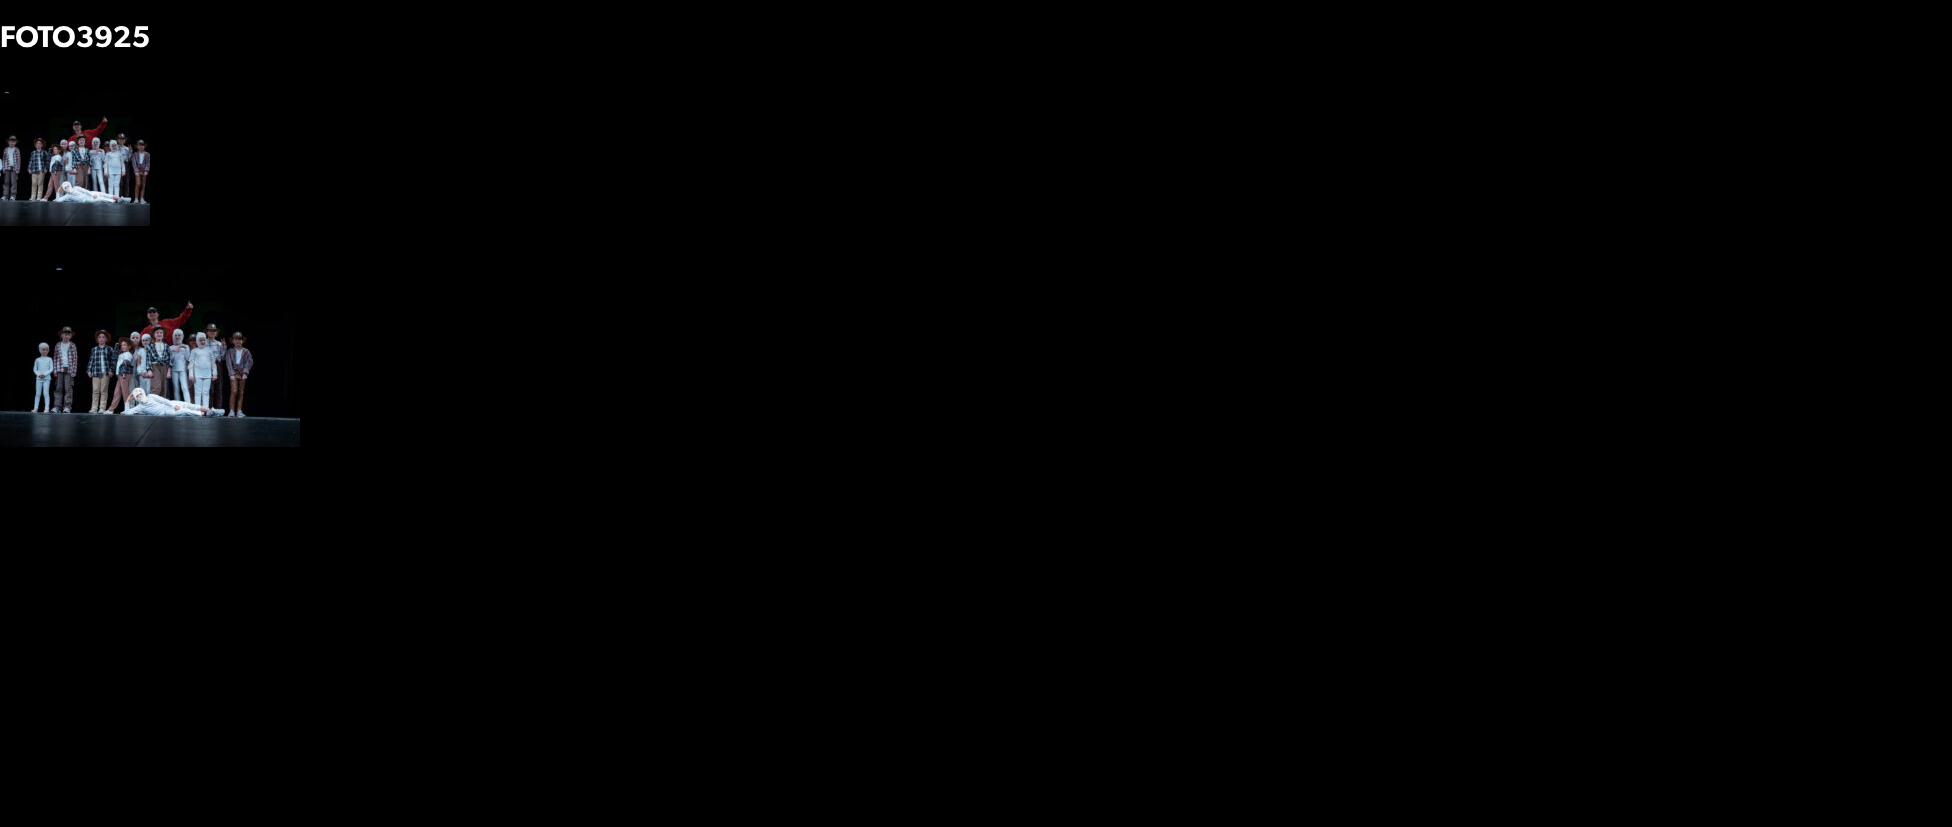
async function draw(canvas) {
	canvas.width = 1952;
	canvas.height = 827;
	const c = canvas.getContext('2d');
	c.miterLimit = 4;
	c.fontKerning = 'normal';
	async function loadImage(src) {
		const img = new Image();
		img.src = src;
		await img.decode();
		return img;
	}

	c.fillStyle = '#000';
	c.fillRect(0, 0, 1952, 827);
	c.font = '600 30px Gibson';
	c.fillStyle = '#fff';
	c.fillText('FOTO3925', 0, 47);
	c.drawImage(await loadImage('img1.png'), 0, 91, 150, 135);
	c.drawImage(await loadImage('img2.png'), 0, 263, 300, 184);
}

draw(document.querySelector('canvas'));
